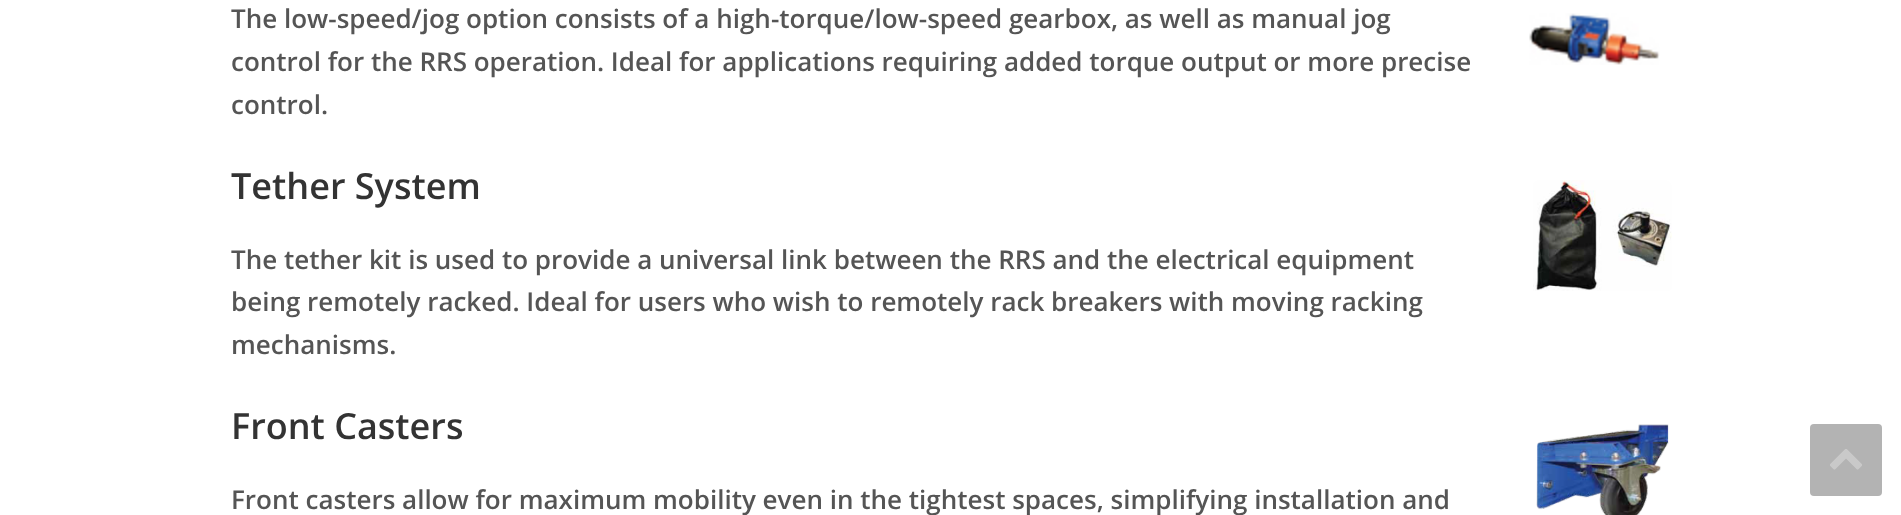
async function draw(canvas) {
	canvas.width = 1901;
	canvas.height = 515;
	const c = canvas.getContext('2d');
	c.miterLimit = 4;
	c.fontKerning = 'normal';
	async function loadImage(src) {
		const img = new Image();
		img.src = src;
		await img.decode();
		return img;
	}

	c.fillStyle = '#fff';
	c.fillRect(0, 0, 1901, 515);
	c.font = '600 26px Open Sans';
	c.fillStyle = '#555';
	for (const [text, x, y] of [
		['The low-speed/jog option consists of a high-torque/low-speed gearbox, as well as manual jog', 231, 28],
		['control for the RRS operation. Ideal for applications requiring added torque output or more precise', 231, 71],
		['control.', 231, 114],
	]) {
		c.fillText(text, x, y);
	}
	c.drawImage(await loadImage('img1.png'), 1529, 13, 131, 52);
	c.font = '600 36px Open Sans';
	c.fillStyle = '#333';
	c.fillText('Tether System', 231, 199);
	c.drawImage(await loadImage('img2.png'), 1533, 180, 139, 111);
	c.font = '600 26px Open Sans';
	c.fillStyle = '#555';
	for (const [text, x, y] of [
		['The tether kit is used to provide a universal link between the RRS and the electrical equipment', 231, 269],
		['being remotely racked. Ideal for users who wish to remotely rack breakers with moving racking', 231, 311],
		['mechanisms.', 231, 354],
	]) {
		c.fillText(text, x, y);
	}
	c.font = '600 36px Open Sans';
	c.fillStyle = '#333';
	c.fillText('Front Casters', 231, 439);
	c.drawImage(await loadImage('img3.png'), 1536, 424, 133, 91);
	c.font = '600 26px Open Sans';
	c.fillStyle = '#555';
	c.fillText('Front casters allow for maximum mobility even in the tightest spaces, simplifying installation and', 231, 509);
	c.fillStyle = '#b3b3b3';
	c.beginPath();
	c.roundRect(1810, 424, 72, 72, 4);
	c.fill();
	c.drawImage(await loadImage('img4.png'), 1830, 449, 32, 21);
}

draw(document.querySelector('canvas'));
